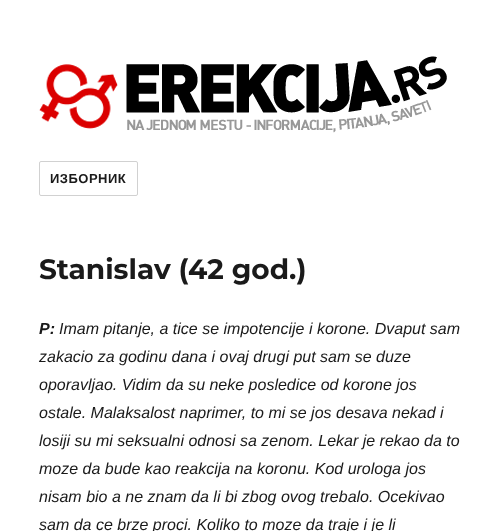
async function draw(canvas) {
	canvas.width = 501;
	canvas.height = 531;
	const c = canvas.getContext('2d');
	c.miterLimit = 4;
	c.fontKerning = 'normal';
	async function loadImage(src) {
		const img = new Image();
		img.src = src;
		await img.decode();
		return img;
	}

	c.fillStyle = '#fff';
	c.fillRect(0, 0, 501, 531);
	c.drawImage(await loadImage('img1.png'), 39, 56, 408, 77);
	c.beginPath();
	c.roundRect(39.5, 161.5, 98, 34, 1.5);
	c.strokeStyle = '#d1d1d1';
	c.stroke();
	c.letterSpacing = '0.5px';
	c.font = 'bold 13px Liberation Sans';
	c.fillStyle = '#1a1a1a';
	c.fillText('ИЗБОРНИК', 50, 183);
	c.letterSpacing = '0px';
	c.font = 'bold 28px Montserrat';
	c.fillText('Stanislav (42 god.)', 39, 279);
	c.font = 'italic bold 16px Liberation Sans';
	c.fillText('P:', 39, 334);
	c.font = 'italic 16px Liberation Sans';
	for (const [text, x, y] of [
		['Imam pitanje, a tice se impotencije i korone. Dvaput sam', 59, 334],
		['zakacio za godinu dana i ovaj drugi put sam se duze', 39, 362],
		['oporavljao. Vidim da su neke posledice od korone jos', 39, 390],
		['ostale. Malaksalost naprimer, to mi se jos desava nekad i', 39, 418],
		['losiji su mi seksualni odnosi sa zenom. Lekar je rekao da to', 39, 446],
		['moze da bude kao reakcija na koronu. Kod urologa jos', 39, 474],
		['nisam bio a ne znam da li bi zbog ovog trebalo. Ocekivao', 39, 502],
		['sam da ce brze proci. Koliko to moze da traje i je li', 39, 530],
	]) {
		c.fillText(text, x, y);
	}
}

draw(document.querySelector('canvas'));
